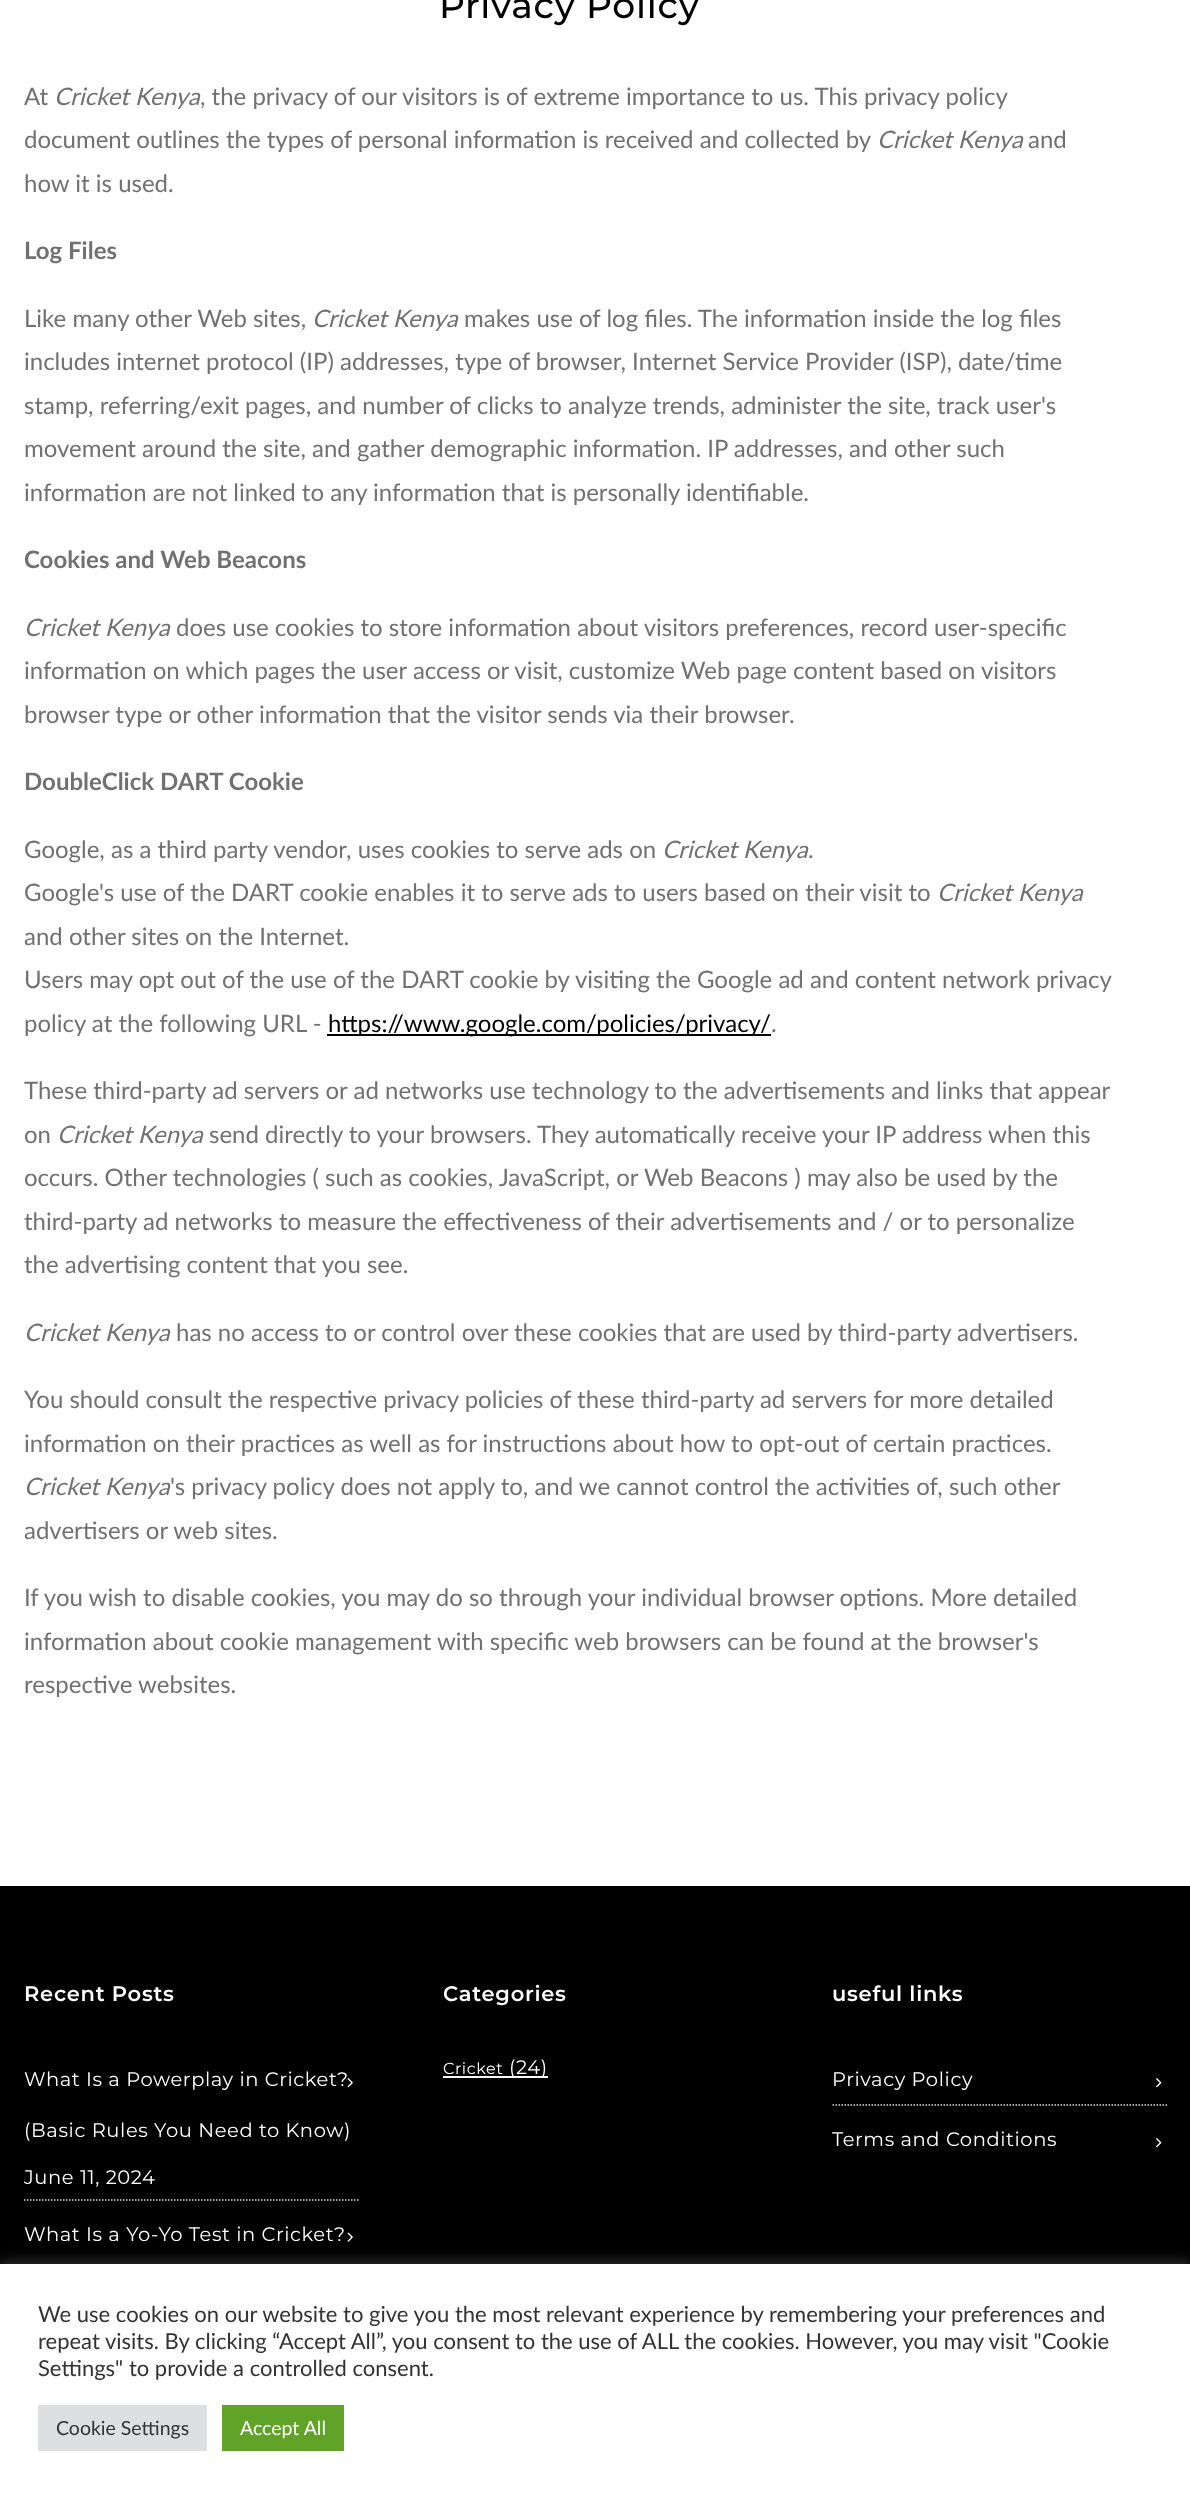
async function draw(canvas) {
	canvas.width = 1190;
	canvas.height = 2496;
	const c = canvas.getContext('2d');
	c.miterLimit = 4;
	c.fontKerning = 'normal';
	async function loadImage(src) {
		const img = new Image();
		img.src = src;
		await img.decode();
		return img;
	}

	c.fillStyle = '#fff';
	c.fillRect(0, 0, 1190, 2496);
	c.letterSpacing = '0.75px';
	c.font = '500 36px Montserrat';
	c.fillStyle = '#000';
	c.fillText('Privacy Policy', 439, 18);
	c.letterSpacing = '0px';
	c.font = '24px Lato';
	c.fillStyle = '#717171';
	c.fillText('At', 24, 105);
	c.font = 'italic 24px Lato';
	c.fillText('Cricket Kenya', 54, 105);
	c.font = '24px Lato';
	c.fillText(', the privacy of our visitors is of extreme importance to us. This privacy policy', 200, 105);
	c.fillText('document outlines the types of personal information is received and collected by', 24, 148);
	c.font = 'italic 24px Lato';
	c.fillText('Cricket Kenya', 877, 148);
	c.font = '24px Lato';
	c.fillText('and', 1028, 148);
	c.fillText('how it is used.', 24, 192);
	c.font = 'bold 24px Lato';
	c.fillText('Log Files', 24, 259);
	c.font = '24px Lato';
	c.fillText('Like many other Web sites,', 24, 327);
	c.font = 'italic 24px Lato';
	c.fillText('Cricket Kenya', 312, 327);
	c.font = '24px Lato';
	for (const [text, x, y] of [
		['makes use of log files. The information inside the log files', 464, 327],
		['includes internet protocol (IP) addresses, type of browser, Internet Service Provider (ISP), date/time', 24, 370],
		['stamp, referring/exit pages, and number of clicks to analyze trends, administer the site, track user\'s', 24, 414],
		['movement around the site, and gather demographic information. IP addresses, and other such', 24, 457],
		['information are not linked to any information that is personally identifiable.', 24, 501],
	]) {
		c.fillText(text, x, y);
	}
	c.font = 'bold 24px Lato';
	c.fillText('Cookies and Web Beacons', 24, 568);
	c.font = 'italic 24px Lato';
	c.fillText('Cricket Kenya', 24, 636);
	c.font = '24px Lato';
	for (const [text, x, y] of [
		['does use cookies to store information about visitors preferences, record user-specific', 176, 636],
		['information on which pages the user access or visit, customize Web page content based on visitors', 24, 679],
		['browser type or other information that the visitor sends via their browser.', 24, 723],
	]) {
		c.fillText(text, x, y);
	}
	c.font = 'bold 24px Lato';
	c.fillText('DoubleClick DART Cookie', 24, 790);
	c.font = '24px Lato';
	c.fillText('Google, as a third party vendor, uses cookies to serve ads on', 24, 858);
	c.font = 'italic 24px Lato';
	c.fillText('Cricket Kenya', 662, 858);
	c.font = '24px Lato';
	c.fillText('.', 808, 858);
	c.fillText('Google\'s use of the DART cookie enables it to serve ads to users based on their visit to', 24, 901);
	c.font = 'italic 24px Lato';
	c.fillText('Cricket Kenya', 937, 901);
	c.font = '24px Lato';
	for (const [text, x, y] of [
		['and other sites on the Internet.', 24, 945],
		['Users may opt out of the use of the DART cookie by visiting the Google ad and content network privacy', 24, 988],
		['policy at the following URL -', 24, 1032],
	]) {
		c.fillText(text, x, y);
	}
	c.fillStyle = '#000';
	c.fillRect(327, 1034, 444, 2);
	c.fillText('https://www.google.com/policies/privacy/', 328, 1032);
	c.fillStyle = '#717171';
	for (const [text, x, y] of [
		['.', 771, 1032],
		['These third-party ad servers or ad networks use technology to the advertisements and links that appear', 24, 1099],
		['on', 24, 1143],
	]) {
		c.fillText(text, x, y);
	}
	c.font = 'italic 24px Lato';
	c.fillText('Cricket Kenya', 57, 1143);
	c.font = '24px Lato';
	for (const [text, x, y] of [
		['send directly to your browsers. They automatically receive your IP address when this', 209, 1143],
		['occurs. Other technologies ( such as cookies, JavaScript, or Web Beacons ) may also be used by the', 24, 1186],
		['third-party ad networks to measure the effectiveness of their advertisements and / or to personalize', 24, 1230],
		['the advertising content that you see.', 24, 1273],
	]) {
		c.fillText(text, x, y);
	}
	c.font = 'italic 24px Lato';
	c.fillText('Cricket Kenya', 24, 1341);
	c.font = '24px Lato';
	for (const [text, x, y] of [
		['has no access to or control over these cookies that are used by third-party advertisers.', 176, 1341],
		['You should consult the respective privacy policies of these third-party ad servers for more detailed', 24, 1408],
		['information on their practices as well as for instructions about how to opt-out of certain practices.', 24, 1452],
	]) {
		c.fillText(text, x, y);
	}
	c.font = 'italic 24px Lato';
	c.fillText('Cricket Kenya', 24, 1495);
	c.font = '24px Lato';
	for (const [text, x, y] of [
		['\'s privacy policy does not apply to, and we cannot control the activities of, such other', 170, 1495],
		['advertisers or web sites.', 24, 1539],
		['If you wish to disable cookies, you may do so through your individual browser options. More detailed', 24, 1606],
		['information about cookie management with specific web browsers can be found at the browser\'s', 24, 1650],
		['respective websites.', 24, 1693],
	]) {
		c.fillText(text, x, y);
	}
	c.fillStyle = '#000';
	c.fillRect(0, 1886, 1190, 378);
	c.letterSpacing = '0.75px';
	c.font = '600 21px Montserrat';
	c.fillStyle = '#fff';
	c.fillText('Recent Posts', 24, 2001);
	c.beginPath();
	c.moveTo(24, 2200);
	c.lineTo(358.5, 2200);
	c.strokeStyle = '#dadbdc';
	c.lineWidth = 1.5;
	c.setLineDash([1.5, 1.5]);
	c.stroke();
	c.letterSpacing = '0.6px';
	c.font = '19.5px Montserrat';
	c.fillText('What Is a Powerplay in Cricket?', 24, 2086);
	c.fillText('(Basic Rules You Need to Know)', 24, 2137);
	c.drawImage(await loadImage('img1.png'), 347, 2078, 6, 10);
	c.fillText('June 11, 2024', 24, 2184);
	c.fillText('What Is a Yo-Yo Test in Cricket?', 24, 2241);
	c.drawImage(await loadImage('img2.png'), 347, 2232, 6, 10);
	c.letterSpacing = '0.75px';
	c.font = '600 21px Montserrat';
	c.fillText('Categories', 443, 2001);
	c.letterSpacing = '0.6px';
	c.font = '16px Montserrat';
	c.fillText('Cricket', 443, 2074);
	c.fillRect(443, 2076, 105, 2);
	c.font = '19.5px Montserrat';
	c.fillText('(24)', 509, 2074);
	c.letterSpacing = '0.75px';
	c.font = '600 21px Montserrat';
	c.fillText('useful links', 832, 2001);
	c.beginPath();
	c.moveTo(832.5, 2105);
	c.lineTo(1167, 2105);
	c.stroke();
	c.letterSpacing = '0.6px';
	c.font = '19.5px Montserrat';
	c.fillText('Privacy Policy', 832, 2086);
	c.drawImage(await loadImage('img3.png'), 1156, 2078, 6, 10);
	c.fillText('Terms and Conditions', 832, 2146);
	c.drawImage(await loadImage('img3.png'), 1156, 2138, 6, 10);
	c.fillStyle = '#acabab4d';
	c.filter = 'blur(7.5px)';
	c.beginPath();
	c.rect(0, 2262, 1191, 233);
	c.fill();
	c.filter = 'none';
	c.fillStyle = '#fff';
	c.fillRect(0, 2264, 1190, 232);
	c.letterSpacing = '0px';
	c.font = '22px Lato';
	c.fillStyle = '#333';
	for (const [text, x, y] of [
		['We use cookies on our website to give you the most relevant experience by remembering your preferences and', 38, 2322],
		['repeat visits. By clicking “Accept All”, you consent to the use of ALL the cookies. However, you may visit "Cookie', 38, 2349],
		['Settings" to provide a controlled consent.', 38, 2376],
	]) {
		c.fillText(text, x, y);
	}
	c.fillStyle = '#dedfe0';
	c.fillRect(38, 2405, 169, 46);
	c.font = '19.5px Lato';
	c.fillStyle = '#333';
	c.fillText('Cookie Settings', 56, 2435);
	c.fillStyle = '#61a229';
	c.fillRect(222, 2405, 122, 46);
	c.fillStyle = '#fff';
	c.fillText('Accept All', 240, 2435);
}

draw(document.querySelector('canvas'));
